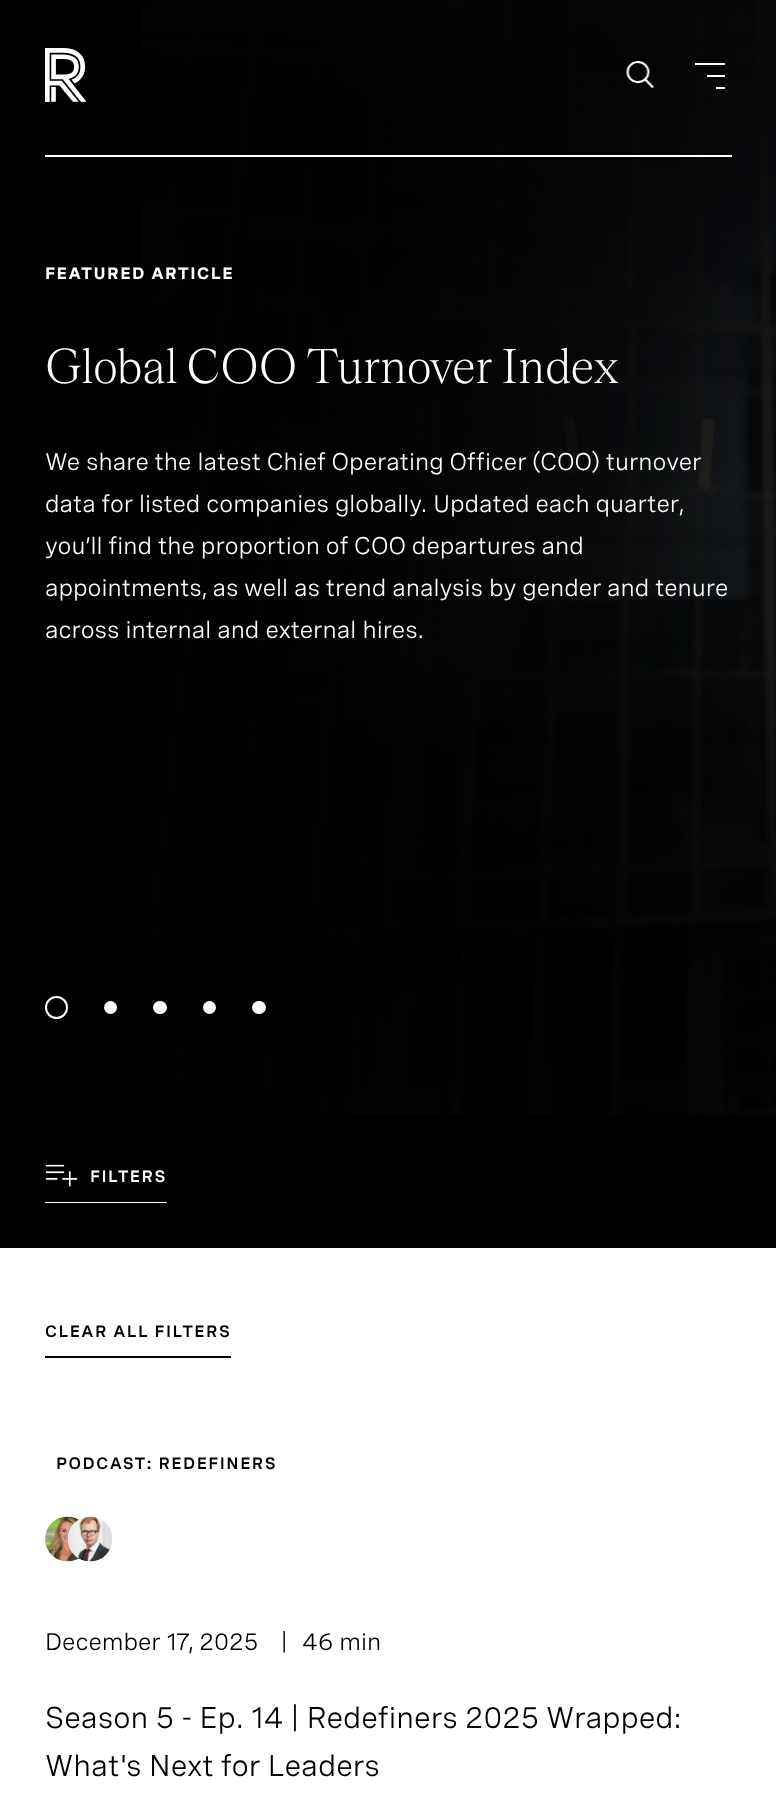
async function draw(canvas) {
	canvas.width = 776;
	canvas.height = 1798;
	const c = canvas.getContext('2d');
	c.miterLimit = 4;
	c.fontKerning = 'normal';
	async function loadImage(src) {
		const img = new Image();
		img.src = src;
		await img.decode();
		return img;
	}

	c.fillStyle = '#fff';
	c.fillRect(0, 0, 776, 1798);
	c.drawImage(await loadImage('img3.png'), 0, 0, 776, 1116);
	c.drawImage(await loadImage('img1.png'), 45, 48, 42, 54);
	c.drawImage(await loadImage('img2.png'), 626, 61, 29, 28);
	for (const [x, y, w, h, color] of [
		[695, 63, 30, 2, '#fff'],
		[707, 75, 18, 2, '#fff'],
		[716, 87, 9, 2, '#fff'],
		[45, 155, 687, 2, '#fff'],
	]) {
		c.fillStyle = color;
		c.fillRect(x, y, w, h);
	}
	c.letterSpacing = '1.5px';
	c.font = 'bold 16.5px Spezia';
	c.fillText('FEATURED ARTICLE', 45, 279);
	c.letterSpacing = '0px';
	c.font = '300 51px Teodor';
	c.fillText('Global COO Turnover Index', 45, 383);
	c.font = '24px Spezia';
	for (const [text, x, y] of [
		['We share the latest Chief Operating Officer (COO) turnover', 45, 470],
		['data for listed companies globally. Updated each quarter,', 45, 512],
		['you’ll find the proportion of COO departures and', 45, 554],
		['appointments, as well as trend analysis by gender and tenure', 45, 596],
		['across internal and external hires.', 45, 638],
	]) {
		c.fillText(text, x, y);
	}
	c.beginPath();
	c.arc(56.5, 1007.5, 10.5, 0, 2 * Math.PI);
	c.strokeStyle = '#fff';
	c.lineWidth = 2;
	c.stroke();
	c.beginPath();
	c.arc(110.5, 1007.5, 6.5, 0, 2 * Math.PI);
	c.fill();
	c.beginPath();
	c.roundRect(153, 1001, 14, 13, 6.5);
	c.fill();
	c.beginPath();
	c.arc(209.5, 1007.5, 6.5, 0, 2 * Math.PI);
	c.fill();
	c.beginPath();
	c.roundRect(252, 1001, 14, 13, 6.5);
	c.fill();
	c.fillStyle = '#000';
	c.fillRect(0, 1116, 776, 132);
	c.fillStyle = '#fff';
	c.fillRect(45, 1202, 122, 1);
	c.drawImage(await loadImage('img4.png'), 45, 1164, 33, 23);
	c.letterSpacing = '1.5px';
	c.font = '600 16.5px Spezia';
	c.fillText('FILTERS', 90, 1182);
	c.fillStyle = '#000';
	c.fillRect(45, 1356, 186, 2);
	c.fillText('CLEAR ALL FILTERS', 45, 1337);
	c.fillText('PODCAST: REDEFINERS', 56, 1469);
	c.drawImage(await loadImage('img5.png'), 45, 1516, 35, 46);
	c.drawImage(await loadImage('img6.png'), 67, 1516, 46, 46);
	c.letterSpacing = '0px';
	c.font = '24px Spezia';
	for (const [text, x, y] of [
		['December 17, 2025', 45, 1650],
		['|', 281, 1650],
		['46 min', 302, 1650],
	]) {
		c.fillText(text, x, y);
	}
	c.font = '30px Spezia';
	c.fillText('Season 5 - Ep. 14 | Redefiners 2025 Wrapped:', 45, 1728);
	c.fillText('What\'s Next for Leaders', 45, 1776);
}

draw(document.querySelector('canvas'));
